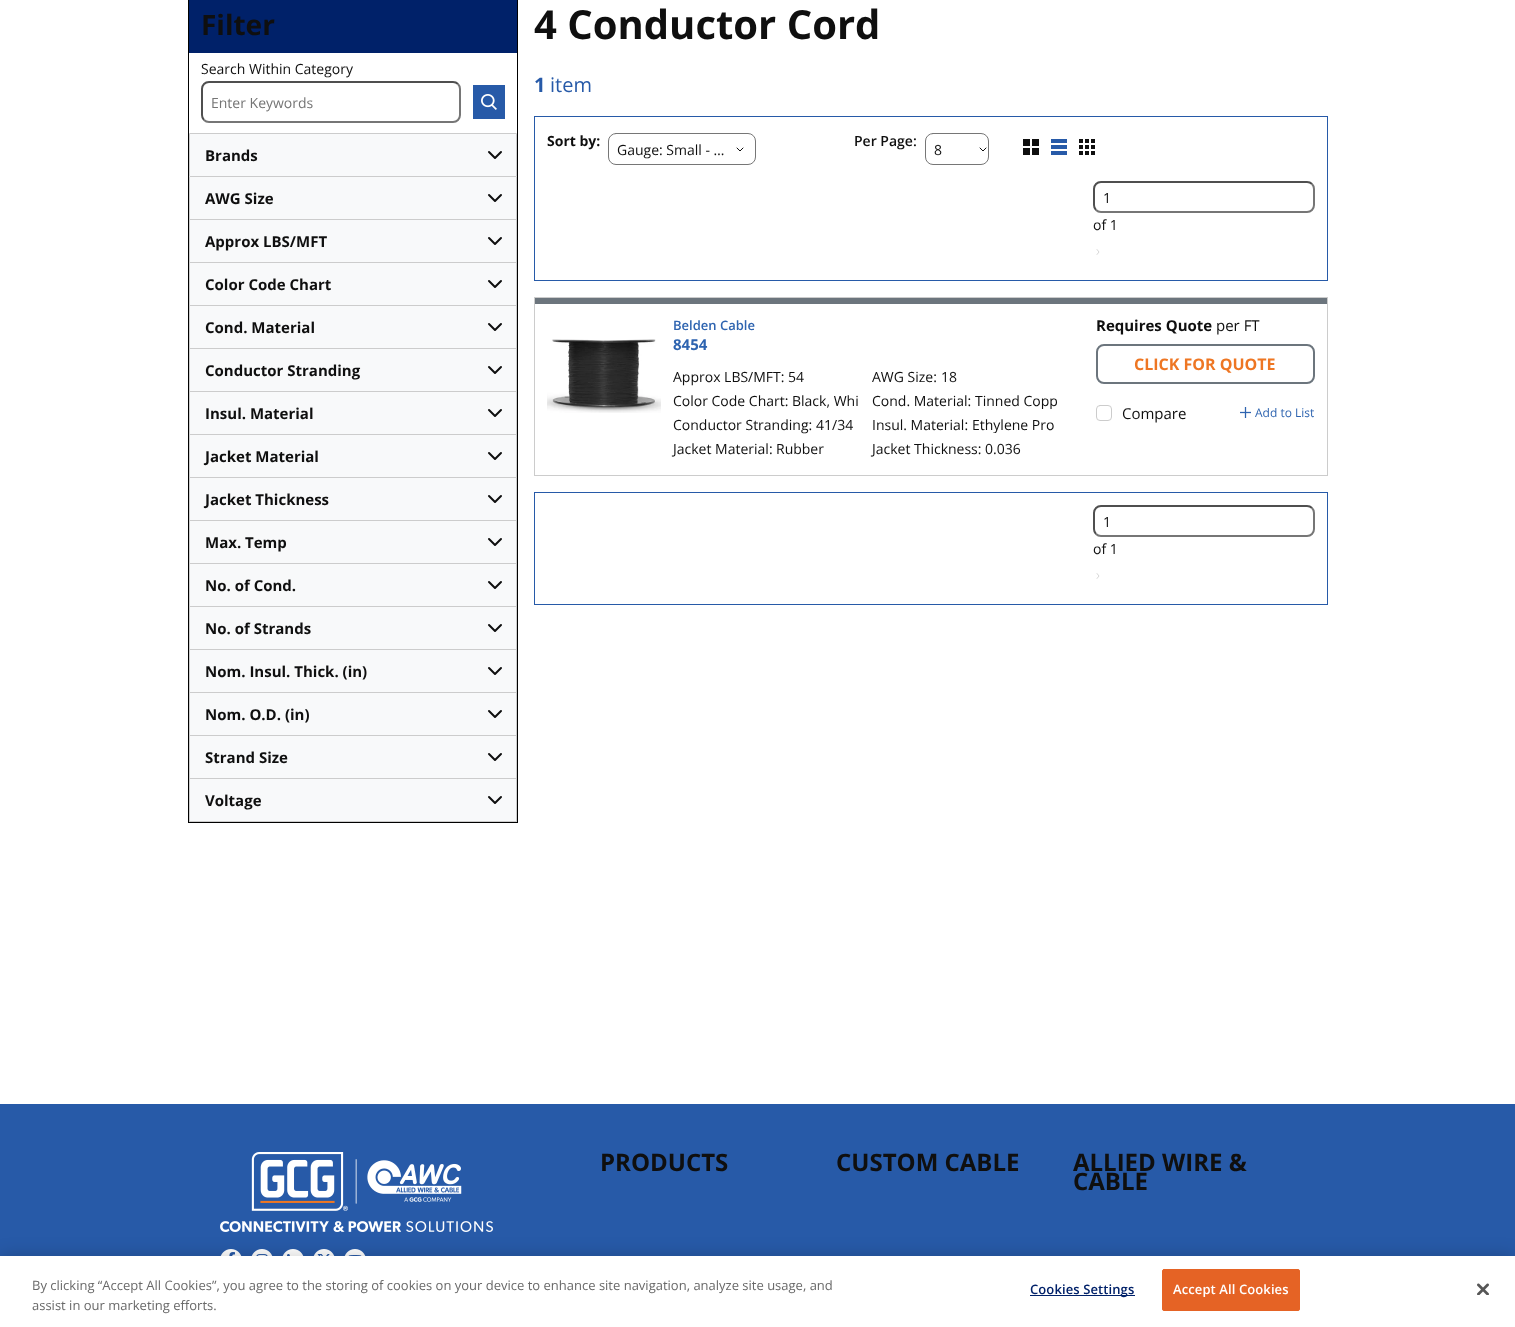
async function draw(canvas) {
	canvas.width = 1515;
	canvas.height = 1327;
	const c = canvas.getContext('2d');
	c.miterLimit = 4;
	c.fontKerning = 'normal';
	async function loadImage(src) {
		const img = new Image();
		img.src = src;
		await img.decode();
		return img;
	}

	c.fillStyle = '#fff';
	c.fillRect(0, 0, 1515, 1327);
	c.strokeStyle = '#000';
	c.strokeRect(188.5, -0.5, 329, 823);
	c.fillStyle = '#002169';
	c.fillRect(189, 0, 328, 53);
	c.font = 'bold 28px Open Sans';
	c.fillStyle = '#0f0f0f';
	c.fillText('Filter', 201, 35);
	c.font = '14px Open Sans';
	c.fillText('Search Within Category', 201, 74);
	c.beginPath();
	c.moveTo(458, 84);
	c.bezierCurveTo(459.5, 85.5, 460, 87, 460, 89);
	c.lineTo(460, 115);
	c.bezierCurveTo(460, 117, 459.5, 118.5, 458, 120);
	c.bezierCurveTo(456.5, 121.5, 455, 122, 453, 122);
	c.lineTo(209, 122);
	c.bezierCurveTo(207, 122, 205.5, 121.5, 204, 120);
	c.strokeStyle = '#767676';
	c.lineWidth = 2;
	c.stroke();
	c.beginPath();
	c.moveTo(204, 120);
	c.bezierCurveTo(202.5, 118.5, 202, 117, 202, 115);
	c.lineTo(202, 89);
	c.bezierCurveTo(202, 87, 202.5, 85.5, 204, 84);
	c.bezierCurveTo(205.5, 82.5, 207, 82, 209, 82);
	c.lineTo(453, 82);
	c.bezierCurveTo(455, 82, 456.5, 82.5, 458, 84);
	c.strokeStyle = '#4f4f4f';
	c.stroke();
	c.fillStyle = '#757575';
	c.fillText('Enter Keywords', 211, 108);
	c.fillStyle = '#275aa8';
	c.fillRect(473, 85, 32, 34);
	c.drawImage(await loadImage('img1.png'), 481, 94, 16, 16);
	c.fillStyle = '#f8f9fa';
	c.beginPath();
	c.rect(189.5, 133.5, 327, 43);
	c.fill();
	c.strokeStyle = '#ccc';
	c.lineWidth = 1;
	c.stroke();
	c.font = 'bold 15px Open Sans';
	c.fillStyle = '#0f0f0f';
	c.fillText('Brands', 205, 161);
	c.fillStyle = '#f8f9fa';
	c.fillRect(190, 177, 326, 42);
	c.beginPath();
	c.moveTo(489, 152);
	c.lineTo(495, 158);
	c.lineTo(501, 152);
	c.moveTo(489, 195);
	c.lineTo(495, 201);
	c.lineTo(501, 195);
	c.strokeStyle = '#0f0f0f';
	c.lineWidth = 2;
	c.lineCap = 'round';
	c.lineJoin = 'round';
	c.stroke();
	for (const [x, y, w, h, color] of [
		[516, 177, 1, 645, '#ccc'],
		[189, 219, 328, 1, '#ccc'],
		[189, 177, 1, 43, '#ccc'],
	]) {
		c.fillStyle = color;
		c.fillRect(x, y, w, h);
	}
	c.fillStyle = '#0f0f0f';
	c.fillText('AWG Size', 205, 204);
	for (const [x, y, w, h, color] of [
		[190, 220, 326, 42, '#f8f9fa'],
		[189, 262, 328, 1, '#ccc'],
		[189, 220, 1, 43, '#ccc'],
	]) {
		c.fillStyle = color;
		c.fillRect(x, y, w, h);
	}
	c.fillStyle = '#0f0f0f';
	c.fillText('Approx LBS/MFT', 205, 247);
	c.fillStyle = '#f8f9fa';
	c.fillRect(190, 263, 326, 42);
	c.beginPath();
	c.moveTo(489, 238);
	c.lineTo(495, 244);
	c.lineTo(501, 238);
	c.moveTo(489, 281);
	c.lineTo(495, 287);
	c.lineTo(501, 281);
	c.stroke();
	c.fillStyle = '#ccc';
	c.fillRect(189, 305, 328, 1);
	c.fillRect(189, 263, 1, 43);
	c.fillStyle = '#0f0f0f';
	c.fillText('Color Code Chart', 205, 290);
	for (const [x, y, w, h, color] of [
		[190, 306, 326, 42, '#f8f9fa'],
		[189, 348, 328, 1, '#ccc'],
		[189, 306, 1, 43, '#ccc'],
	]) {
		c.fillStyle = color;
		c.fillRect(x, y, w, h);
	}
	c.fillStyle = '#0f0f0f';
	c.fillText('Cond. Material', 205, 333);
	c.fillStyle = '#f8f9fa';
	c.fillRect(190, 349, 326, 42);
	c.beginPath();
	c.moveTo(489, 324);
	c.lineTo(495, 330);
	c.lineTo(501, 324);
	c.moveTo(489, 367);
	c.lineTo(495, 373);
	c.lineTo(501, 367);
	c.stroke();
	c.fillStyle = '#ccc';
	c.fillRect(189, 391, 328, 1);
	c.fillRect(189, 349, 1, 43);
	c.fillStyle = '#0f0f0f';
	c.fillText('Conductor Stranding', 205, 376);
	for (const [x, y, w, h, color] of [
		[190, 392, 326, 42, '#f8f9fa'],
		[189, 434, 328, 1, '#ccc'],
		[189, 392, 1, 43, '#ccc'],
	]) {
		c.fillStyle = color;
		c.fillRect(x, y, w, h);
	}
	c.fillStyle = '#0f0f0f';
	c.fillText('Insul. Material', 205, 419);
	c.fillStyle = '#f8f9fa';
	c.fillRect(190, 435, 326, 42);
	c.beginPath();
	c.moveTo(489, 410);
	c.lineTo(495, 416);
	c.lineTo(501, 410);
	c.moveTo(489, 453);
	c.lineTo(495, 459);
	c.lineTo(501, 453);
	c.stroke();
	c.fillStyle = '#ccc';
	c.fillRect(189, 477, 328, 1);
	c.fillRect(189, 435, 1, 43);
	c.fillStyle = '#0f0f0f';
	c.fillText('Jacket Material', 205, 462);
	for (const [x, y, w, h, color] of [
		[190, 478, 326, 42, '#f8f9fa'],
		[189, 520, 328, 1, '#ccc'],
		[189, 478, 1, 43, '#ccc'],
	]) {
		c.fillStyle = color;
		c.fillRect(x, y, w, h);
	}
	c.fillStyle = '#0f0f0f';
	c.fillText('Jacket Thickness', 205, 505);
	c.fillStyle = '#f8f9fa';
	c.fillRect(190, 521, 326, 42);
	c.beginPath();
	c.moveTo(489, 496);
	c.lineTo(495, 502);
	c.lineTo(501, 496);
	c.moveTo(489, 539);
	c.lineTo(495, 545);
	c.lineTo(501, 539);
	c.stroke();
	c.fillStyle = '#ccc';
	c.fillRect(189, 563, 328, 1);
	c.fillRect(189, 521, 1, 43);
	c.fillStyle = '#0f0f0f';
	c.fillText('Max. Temp', 205, 548);
	for (const [x, y, w, h, color] of [
		[190, 564, 326, 42, '#f8f9fa'],
		[189, 606, 328, 1, '#ccc'],
		[189, 564, 1, 43, '#ccc'],
	]) {
		c.fillStyle = color;
		c.fillRect(x, y, w, h);
	}
	c.fillStyle = '#0f0f0f';
	c.fillText('No. of Cond.', 205, 591);
	c.fillStyle = '#f8f9fa';
	c.fillRect(190, 607, 326, 42);
	c.beginPath();
	c.moveTo(489, 582);
	c.lineTo(495, 588);
	c.lineTo(501, 582);
	c.moveTo(489, 625);
	c.lineTo(495, 631);
	c.lineTo(501, 625);
	c.stroke();
	c.fillStyle = '#ccc';
	c.fillRect(189, 649, 328, 1);
	c.fillRect(189, 607, 1, 43);
	c.fillStyle = '#0f0f0f';
	c.fillText('No. of Strands', 205, 634);
	for (const [x, y, w, h, color] of [
		[190, 650, 326, 42, '#f8f9fa'],
		[189, 692, 328, 1, '#ccc'],
		[189, 650, 1, 43, '#ccc'],
	]) {
		c.fillStyle = color;
		c.fillRect(x, y, w, h);
	}
	c.fillStyle = '#0f0f0f';
	c.fillText('Nom. Insul. Thick. (in)', 205, 677);
	c.fillStyle = '#f8f9fa';
	c.fillRect(190, 693, 326, 42);
	c.beginPath();
	c.moveTo(489, 668);
	c.lineTo(495, 674);
	c.lineTo(501, 668);
	c.moveTo(489, 711);
	c.lineTo(495, 717);
	c.lineTo(501, 711);
	c.stroke();
	c.fillStyle = '#ccc';
	c.fillRect(189, 735, 328, 1);
	c.fillRect(189, 693, 1, 43);
	c.fillStyle = '#0f0f0f';
	c.fillText('Nom. O.D. (in)', 205, 720);
	for (const [x, y, w, h, color] of [
		[190, 736, 326, 42, '#f8f9fa'],
		[189, 778, 328, 1, '#ccc'],
		[189, 736, 1, 43, '#ccc'],
	]) {
		c.fillStyle = color;
		c.fillRect(x, y, w, h);
	}
	c.fillStyle = '#0f0f0f';
	c.fillText('Strand Size', 205, 763);
	c.fillStyle = '#f8f9fa';
	c.fillRect(190, 779, 326, 42);
	c.beginPath();
	c.moveTo(489, 754);
	c.lineTo(495, 760);
	c.lineTo(501, 754);
	c.moveTo(489, 797);
	c.lineTo(495, 803);
	c.lineTo(501, 797);
	c.stroke();
	c.fillStyle = '#ccc';
	c.fillRect(189, 821, 328, 1);
	c.fillRect(189, 779, 1, 43);
	c.fillStyle = '#0f0f0f';
	c.fillText('Voltage', 205, 806);
	c.font = 'bold 40px Open Sans';
	c.fillText('4 Conductor Cord', 534, 39);
	c.font = 'bold 20px Open Sans';
	c.fillStyle = '#275aa8';
	c.fillText('1', 534, 92);
	c.font = '20px Open Sans';
	c.fillText('item', 550, 92);
	c.strokeStyle = '#275aa8';
	c.lineWidth = 1;
	c.lineJoin = 'miter';
	c.strokeRect(534.5, 116.5, 793, 164);
	c.font = 'bold 14px Open Sans';
	c.fillStyle = '#0f0f0f';
	c.fillText('Sort by:', 547, 146);
	c.beginPath();
	c.roundRect(608.5, 133.5, 147, 31, 7.5);
	c.strokeStyle = '#767676';
	c.stroke();
	c.font = '14px Open Sans';
	c.fillText('Gauge: Small - …', 617, 155);
	c.beginPath();
	c.moveTo(737, 148);
	c.lineTo(740, 151);
	c.lineTo(743, 148);
	c.strokeStyle = '#0f0f0f';
	c.lineJoin = 'round';
	c.stroke();
	c.font = '600 14px Open Sans';
	c.fillText('Per Page:', 854, 146);
	c.beginPath();
	c.roundRect(925.5, 133.5, 63, 31, 7.5);
	c.strokeStyle = '#767676';
	c.lineJoin = 'miter';
	c.stroke();
	c.font = '14px Open Sans';
	c.fillText('8', 934, 155);
	c.beginPath();
	c.moveTo(980, 148);
	c.lineTo(983, 151);
	c.lineTo(986, 148);
	c.strokeStyle = '#0f0f0f';
	c.lineJoin = 'round';
	c.stroke();
	c.drawImage(await loadImage('img2.png'), 1023, 139, 16, 16);
	c.drawImage(await loadImage('img3.png'), 1051, 139, 16, 16);
	c.drawImage(await loadImage('img4.png'), 1079, 139, 16, 16);
	c.beginPath();
	c.moveTo(1312, 184);
	c.bezierCurveTo(1313.5, 185.5, 1314, 187, 1314, 189);
	c.lineTo(1314, 205);
	c.bezierCurveTo(1314, 207, 1313.5, 208.5, 1312, 210);
	c.bezierCurveTo(1310.5, 211.5, 1309, 212, 1307, 212);
	c.lineTo(1101, 212);
	c.bezierCurveTo(1099, 212, 1097.5, 211.5, 1096, 210);
	c.strokeStyle = '#767676';
	c.lineWidth = 2;
	c.lineCap = 'butt';
	c.lineJoin = 'miter';
	c.stroke();
	c.beginPath();
	c.moveTo(1096, 210);
	c.bezierCurveTo(1094.5, 208.5, 1094, 207, 1094, 205);
	c.lineTo(1094, 189);
	c.bezierCurveTo(1094, 187, 1094.5, 185.5, 1096, 184);
	c.bezierCurveTo(1097.5, 182.5, 1099, 182, 1101, 182);
	c.lineTo(1307, 182);
	c.bezierCurveTo(1309, 182, 1310.5, 182.5, 1312, 184);
	c.strokeStyle = '#4f4f4f';
	c.stroke();
	c.fillText('1', 1103, 203);
	c.fillText('of 1', 1093, 230);
	c.beginPath();
	c.moveTo(1097, 254.5);
	c.lineTo(1099, 252);
	c.lineTo(1097, 249.5);
	c.strokeStyle = '#ccc';
	c.lineWidth = 0.8;
	c.lineCap = 'round';
	c.lineJoin = 'round';
	c.stroke();
	c.lineWidth = 1;
	c.lineJoin = 'miter';
	c.strokeRect(534.5, 297.5, 793, 178);
	c.fillStyle = '#6c757d';
	c.fillRect(535, 298, 792, 6);
	c.drawImage(await loadImage('img5.png'), 547, 339, 114, 74);
	c.font = '600 13px Open Sans';
	c.fillStyle = '#2e64b0';
	c.fillText('Belden Cable', 673, 330);
	c.font = 'bold 15px Open Sans';
	c.fillText('8454', 673, 350);
	c.font = '14px Open Sans';
	c.fillStyle = '#0f0f0f';
	for (const [text, x, y] of [
		['Approx LBS/MFT:', 673, 382],
		['54', 788, 382],
		['AWG Size:', 872, 382],
		['18', 941, 382],
		['Color Code Chart:', 673, 406],
		['Black, Whi', 792, 406],
		['Cond. Material:', 872, 406],
	]) {
		c.fillText(text, x, y);
	}
	c.save();
	c.beginPath();
	c.rect(975, 393, 85, 16);
	c.clip();
	c.fillText('Tinned Copp', 975, 406);
	c.restore();
	for (const [text, x, y] of [
		['Conductor Stranding:', 673, 430],
		['41/34', 816, 430],
		['Insul. Material:', 872, 430],
	]) {
		c.fillText(text, x, y);
	}
	c.save();
	c.beginPath();
	c.rect(972, 417, 88, 16);
	c.clip();
	c.fillText('Ethylene Pro', 972, 430);
	c.restore();
	for (const [text, x, y] of [
		['Jacket Material:', 673, 454],
		['Rubber', 776, 454],
		['Jacket Thickness:', 872, 454],
		['0.036', 985, 454],
	]) {
		c.fillText(text, x, y);
	}
	c.font = 'bold 15px Open Sans';
	c.fillText('Requires Quote', 1096, 331);
	c.font = '15px Open Sans';
	c.fillText('per FT', 1216, 331);
	c.beginPath();
	c.roundRect(1097, 345, 217, 38, 7);
	c.strokeStyle = '#6c757d';
	c.lineWidth = 2;
	c.stroke();
	c.font = 'bold 16px Open Sans';
	c.fillStyle = '#ee7623';
	c.fillText('CLICK FOR QUOTE', 1134, 370);
	c.beginPath();
	c.roundRect(1096.5, 405.5, 15, 15, 3.5);
	c.strokeStyle = '#ccc';
	c.lineWidth = 1;
	c.stroke();
	c.font = '15px Open Sans';
	c.fillStyle = '#0f0f0f';
	c.fillText('Compare', 1122, 419);
	c.drawImage(await loadImage('img6.png'), 1240, 407, 11, 11);
	c.font = '12px Open Sans';
	c.fillStyle = '#2e64b0';
	c.fillText('Add to List', 1255, 417);
	c.strokeStyle = '#275aa8';
	c.strokeRect(534.5, 492.5, 793, 112);
	c.beginPath();
	c.moveTo(1312, 508);
	c.bezierCurveTo(1313.5, 509.5, 1314, 511, 1314, 513);
	c.lineTo(1314, 529);
	c.bezierCurveTo(1314, 531, 1313.5, 532.5, 1312, 534);
	c.bezierCurveTo(1310.5, 535.5, 1309, 536, 1307, 536);
	c.lineTo(1101, 536);
	c.bezierCurveTo(1099, 536, 1097.5, 535.5, 1096, 534);
	c.strokeStyle = '#767676';
	c.lineWidth = 2;
	c.lineCap = 'butt';
	c.stroke();
	c.beginPath();
	c.moveTo(1096, 534);
	c.bezierCurveTo(1094.5, 532.5, 1094, 531, 1094, 529);
	c.lineTo(1094, 513);
	c.bezierCurveTo(1094, 511, 1094.5, 509.5, 1096, 508);
	c.bezierCurveTo(1097.5, 506.5, 1099, 506, 1101, 506);
	c.lineTo(1307, 506);
	c.bezierCurveTo(1309, 506, 1310.5, 506.5, 1312, 508);
	c.strokeStyle = '#4f4f4f';
	c.stroke();
	c.font = '14px Open Sans';
	c.fillStyle = '#0f0f0f';
	c.fillText('1', 1103, 527);
	c.fillText('of 1', 1093, 554);
	c.beginPath();
	c.moveTo(1097, 578.5);
	c.lineTo(1099, 576);
	c.lineTo(1097, 573.5);
	c.strokeStyle = '#ccc';
	c.lineWidth = 0.8;
	c.lineCap = 'round';
	c.lineJoin = 'round';
	c.stroke();
	c.fillStyle = '#275aa8';
	c.fillRect(0, 1104, 1515, 152);
	c.drawImage(await loadImage('img7.png'), 220, 1152, 273, 80);
	c.drawImage(await loadImage('img8.png'), 220, 1249, 22, 7);
	c.drawImage(await loadImage('img9.png'), 251, 1249, 22, 7);
	c.drawImage(await loadImage('img10.png'), 282, 1249, 22, 7);
	c.drawImage(await loadImage('img11.png'), 313, 1249, 22, 7);
	c.drawImage(await loadImage('img12.png'), 344, 1249, 22, 7);
	c.font = 'bold 24px Open Sans';
	c.fillStyle = '#0f0f0f';
	for (const [text, x, y] of [
		['PRODUCTS', 600, 1171],
		['CUSTOM CABLE', 836, 1171],
		['ALLIED WIRE &', 1073, 1171],
		['CABLE', 1073, 1190],
	]) {
		c.fillText(text, x, y);
	}
	c.fillStyle = '#00000033';
	c.filter = 'blur(9px)';
	c.beginPath();
	c.rect(0, 1256, 1515, 71);
	c.fill();
	c.filter = 'none';
	c.fillStyle = '#fff';
	c.fillRect(0, 1256, 1515, 71);
	c.font = '13px Open Sans';
	c.fillStyle = '#696969';
	c.fillText('By clicking “Accept All Cookies”, you agree to the storing of cookies on your device to enhance site navigation, analyze site usage, and', 32, 1290);
	c.fillText('assist in our marketing efforts.', 32, 1310);
	c.fillStyle = '#002169';
	c.fillRect(1030, 1295, 105, 1);
	c.letterSpacing = '0.1px';
	c.font = '600 13px Open Sans';
	c.fillText('Cookies Settings', 1030, 1294);
	c.fillStyle = '#e56325';
	c.beginPath();
	c.roundRect(1162.5, 1269.5, 137, 41, 1.5);
	c.fill();
	c.strokeStyle = '#e56325';
	c.lineWidth = 1;
	c.lineJoin = 'miter';
	c.stroke();
	c.fillStyle = '#fff';
	c.fillText('Accept All Cookies', 1173, 1294);
	c.drawImage(await loadImage('img13.png'), 1477, 1283, 12, 12);
}

draw(document.querySelector('canvas'));
